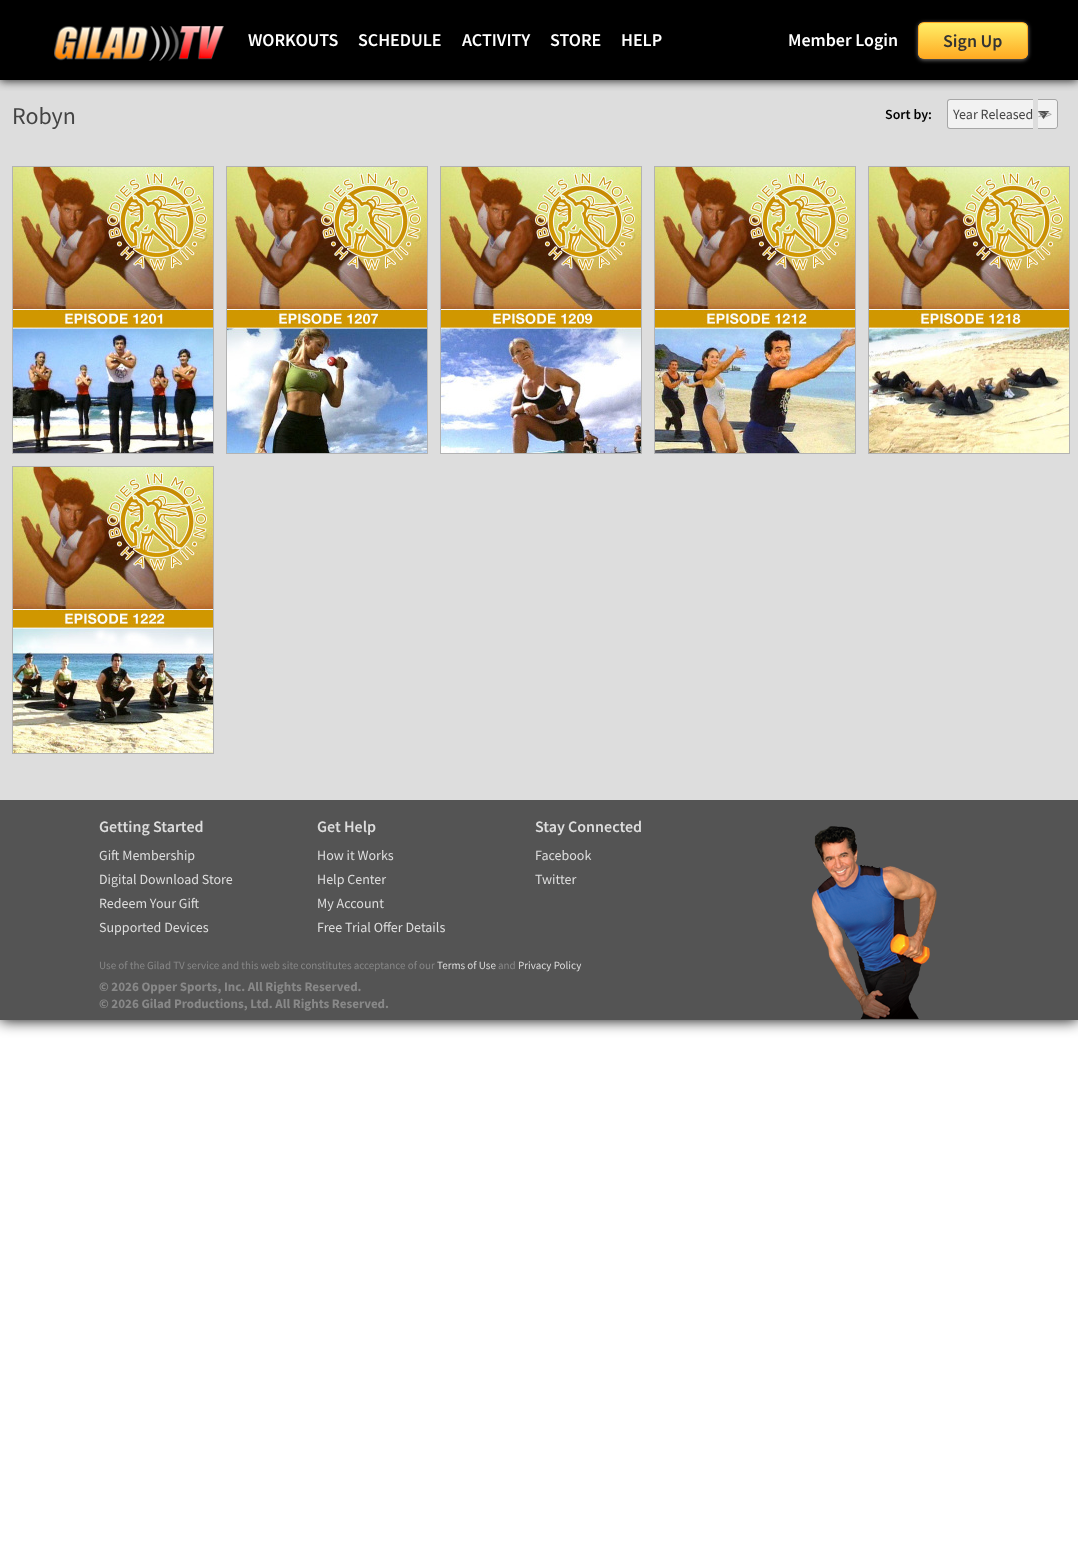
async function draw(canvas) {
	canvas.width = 1078;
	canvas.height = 1567;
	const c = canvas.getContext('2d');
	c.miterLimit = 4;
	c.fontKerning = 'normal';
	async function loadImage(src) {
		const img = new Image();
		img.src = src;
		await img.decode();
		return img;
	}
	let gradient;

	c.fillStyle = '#fff';
	c.fillRect(0, 0, 1078, 1567);
	c.fillStyle = '#000';
	c.fillRect(0, 0, 1078, 80);
	c.filter = 'blur(7.5px)';
	c.beginPath();
	c.rect(0, 80, 1078, 940);
	c.fill();
	c.filter = 'none';
	c.fillStyle = '#ddd';
	c.fillRect(0, 80, 1078, 720);
	c.save();
	c.beginPath();
	c.rect(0, 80, 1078, 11);
	c.clip();
	c.fillStyle = '#000000cc';
	c.filter = 'blur(5px)';
	c.beginPath();
	c.rect(0, 1, 1078, 80);
	c.fill();
	c.filter = 'none';
	c.restore();
	c.drawImage(await loadImage('img1.png'), 54, 26, 170, 35);
	c.font = '600 18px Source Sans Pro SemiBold';
	c.fillStyle = '#fff';
	for (const [text, x, y] of [
		['WORKOUTS', 248, 46],
		['SCHEDULE', 358, 46],
		['ACTIVITY', 462, 46],
		['STORE', 550, 46],
		['HELP', 621, 46],
		['Member Login', 788, 46],
	]) {
		c.fillText(text, x, y);
	}
	c.fillStyle = '#787878';
	c.filter = 'blur(2px)';
	c.beginPath();
	c.roundRect(918, 23, 110, 37, 6);
	c.fill();
	c.filter = 'none';
	c.save();
	c.beginPath();
	c.roundRect(918, 22, 110, 37, 6);
	c.clip();
	gradient = c.createLinearGradient(973, 23, 973, 58);
	gradient.addColorStop(0.05, '#ffec64');
	gradient.addColorStop(1, '#ffab23');
	c.fillStyle = gradient;
	c.fillRect(918, 23, 110, 35);
	c.restore();
	c.beginPath();
	c.roundRect(918.5, 22.5, 109, 36, 5.5);
	c.strokeStyle = '#fa2';
	c.stroke();
	c.fillStyle = '#333';
	c.fillText('Sign Up', 943, 47);
	c.font = '24px Source Sans Pro';
	c.fillStyle = '#444';
	c.fillText('Robyn', 12, 124);
	c.font = '600 14px Source Sans Pro SemiBold';
	c.fillStyle = '#000';
	c.fillText('Sort by:', 885, 119);
	c.fillStyle = '#f2f2f2';
	c.beginPath();
	c.roundRect(947, 99, 86, 30, [3, 0, 0, 3]);
	c.fill();
	c.fillStyle = '#a6a6a6';
	c.beginPath();
	c.moveTo(950, 99);
	c.lineTo(1033, 99);
	c.lineTo(1033, 129);
	c.lineTo(950, 129);
	c.bezierCurveTo(948, 129, 947, 128, 947, 126);
	c.lineTo(947, 102);
	c.bezierCurveTo(947, 100, 948, 99, 950, 99);
	c.closePath();
	c.moveTo(950, 100);
	c.lineTo(1033, 100);
	c.lineTo(1033, 128);
	c.lineTo(950, 128);
	c.bezierCurveTo(949, 128, 948, 127, 948, 126);
	c.lineTo(948, 102);
	c.bezierCurveTo(948, 101, 949, 100, 950, 100);
	c.closePath();
	c.fill('evenodd');
	c.font = '14px Source Sans Pro';
	c.fillStyle = '#444';
	c.fillText('Year Released', 953, 119);
	c.fillStyle = '#f2f2f2';
	c.beginPath();
	c.roundRect(1038, 99, 20, 30, [0, 3, 3, 0]);
	c.fill();
	c.fillStyle = '#a6a6a6';
	c.beginPath();
	c.moveTo(1038, 99);
	c.lineTo(1055, 99);
	c.bezierCurveTo(1056.5, 99, 1058, 100.5, 1058, 102);
	c.lineTo(1058, 126);
	c.bezierCurveTo(1058, 127.5, 1056.5, 129, 1055, 129);
	c.lineTo(1038, 129);
	c.closePath();
	c.moveTo(1038, 100);
	c.lineTo(1055, 100);
	c.bezierCurveTo(1056, 100, 1057, 101, 1057, 102);
	c.lineTo(1057, 126);
	c.bezierCurveTo(1057, 127, 1056, 128, 1055, 128);
	c.lineTo(1038, 128);
	c.closePath();
	c.fill('evenodd');
	c.drawImage(await loadImage('img2.png'), 1038, 111, 12, 8);
	c.fillStyle = '#a7a7a7';
	c.fillText('>>', 1038, 119);
	c.strokeStyle = '#b3b3b3';
	c.strokeRect(12.5, 166.5, 201, 287);
	c.drawImage(await loadImage('img3.png'), 13, 167, 200, 286);
	c.strokeRect(226.5, 166.5, 201, 287);
	c.drawImage(await loadImage('img4.png'), 227, 167, 200, 286);
	c.strokeRect(440.5, 166.5, 201, 287);
	c.drawImage(await loadImage('img5.png'), 441, 167, 200, 286);
	c.strokeRect(654.5, 166.5, 201, 287);
	c.drawImage(await loadImage('img6.png'), 655, 167, 200, 286);
	c.strokeRect(868.5, 166.5, 201, 287);
	c.drawImage(await loadImage('img7.png'), 869, 167, 200, 286);
	c.strokeRect(12.5, 466.5, 201, 287);
	c.drawImage(await loadImage('img8.png'), 13, 467, 200, 286);
	c.fillStyle = '#545454';
	c.fillRect(0, 800, 1078, 220);
	c.font = '600 16px Source Sans Pro SemiBold';
	c.fillStyle = '#ddd';
	c.fillText('Getting Started', 99, 832);
	c.font = '14px Source Sans Pro';
	for (const [text, x, y] of [
		['Gift Membership', 99, 860],
		['Digital Download Store', 99, 884],
		['Redeem Your Gift', 99, 908],
		['Supported Devices', 99, 932],
	]) {
		c.fillText(text, x, y);
	}
	c.font = '600 16px Source Sans Pro SemiBold';
	c.fillText('Get Help', 317, 832);
	c.font = '14px Source Sans Pro';
	for (const [text, x, y] of [
		['How it Works', 317, 860],
		['Help Center', 317, 884],
		['My Account', 317, 908],
		['Free Trial Offer Details', 317, 932],
	]) {
		c.fillText(text, x, y);
	}
	c.font = '600 16px Source Sans Pro SemiBold';
	c.fillText('Stay Connected', 535, 832);
	c.font = '14px Source Sans Pro';
	c.fillText('Facebook', 535, 860);
	c.fillText('Twitter', 535, 884);
	c.font = '11px Source Sans Pro';
	c.fillStyle = '#888';
	c.fillText('Use of the Gilad TV service and this web site constitutes acceptance of our', 99, 969);
	c.fillStyle = '#ddd';
	c.fillText('Terms of Use', 437, 969);
	c.fillStyle = '#888';
	c.fillText('and', 498, 969);
	c.fillStyle = '#ddd';
	c.fillText('Privacy Policy', 518, 969);
	c.font = 'bold 13px Source Sans Pro';
	c.fillStyle = '#888';
	c.fillText('© 2026 Opper Sports, Inc. All Rights Reserved.', 99, 991);
	c.fillText('© 2026 Gilad Productions, Ltd. All Rights Reserved.', 99, 1008);
	c.drawImage(await loadImage('img9.png'), 811, 826, 126, 193);
}

draw(document.querySelector('canvas'));
